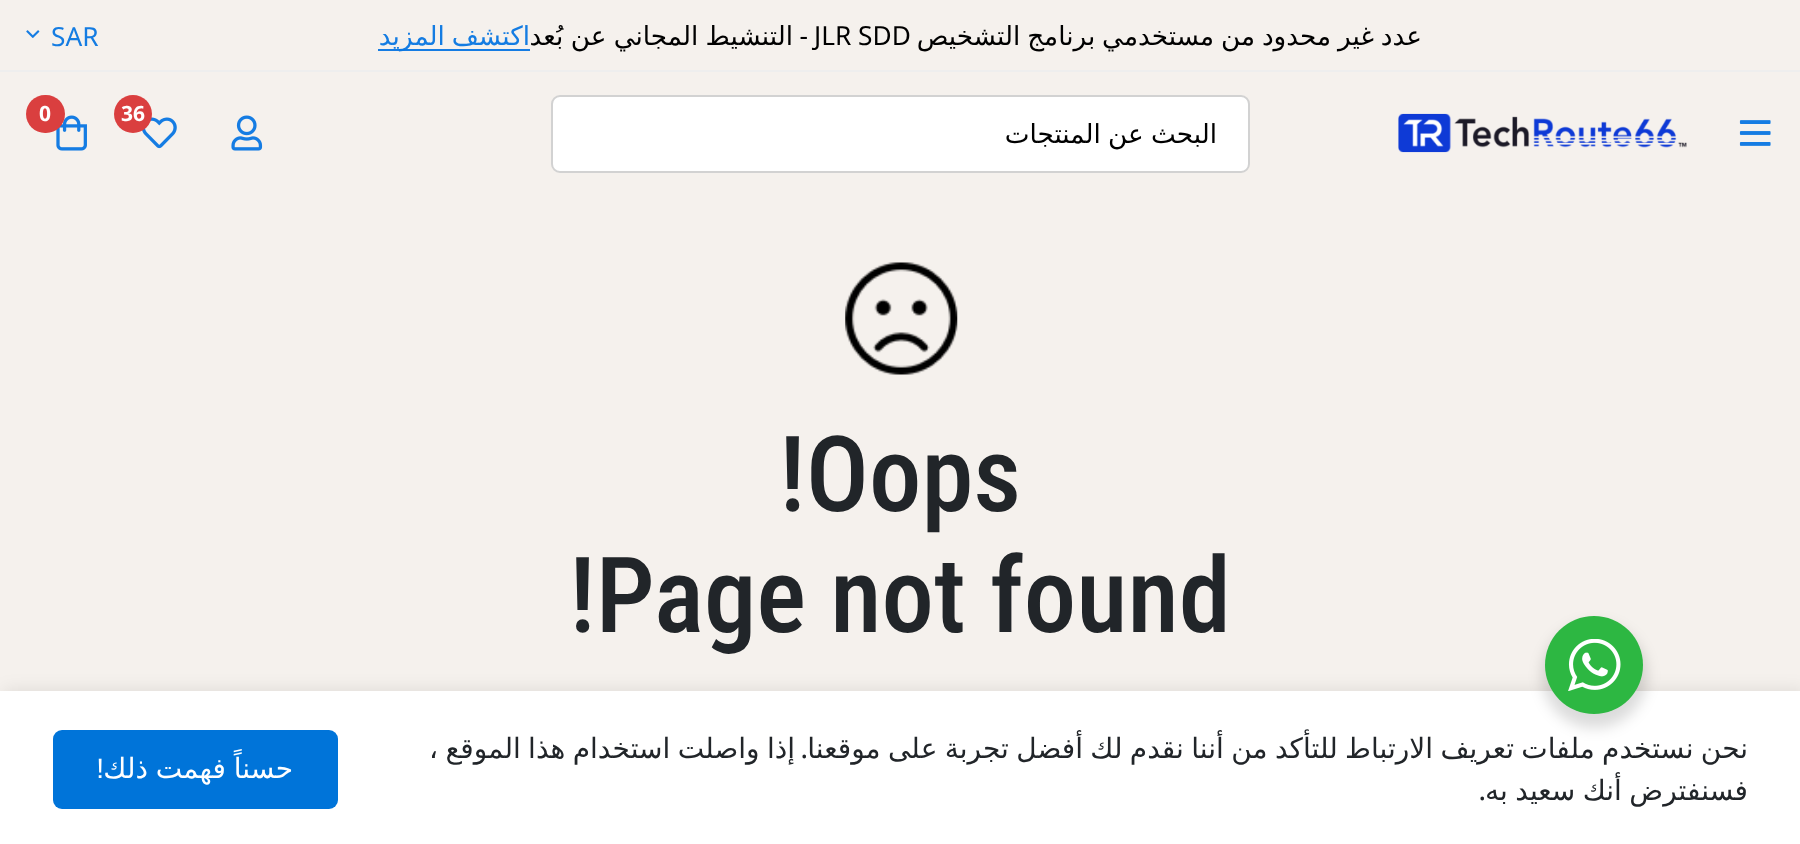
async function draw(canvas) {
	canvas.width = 1800;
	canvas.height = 844;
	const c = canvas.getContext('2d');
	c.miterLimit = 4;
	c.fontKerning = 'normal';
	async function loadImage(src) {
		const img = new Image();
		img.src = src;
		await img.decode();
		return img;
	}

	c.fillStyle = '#f5f1ed';
	c.fillRect(0, 0, 1800, 844);
	c.fillStyle = '#eee';
	c.fillRect(0, 70, 1800, 2);
	c.wordSpacing = '-1.5px';
	c.direction = 'rtl';
	c.font = '26.25px DejaVu Sans';
	c.fillStyle = '#000';
	c.fillText('عدد غير محدود من مستخدمي برنامج التشخيص', 1422, 45);
	c.wordSpacing = '0px';
	c.direction = 'ltr';
	c.font = '26.25px Noto Sans';
	c.fillText('JLR SDD', 814, 45);
	c.direction = 'rtl';
	c.fillText('-', 808, 45);
	c.wordSpacing = '-1px';
	c.font = '26.25px DejaVu Sans';
	c.fillText('التنشيط المجاني عن بُعد', 793, 45);
	c.wordSpacing = '-1.5px';
	c.fillStyle = '#147ce2';
	c.fillText('اكتشف المزيد', 530, 45);
	c.fillStyle = '#0b77e2f5';
	c.fillRect(378, 49, 152, 2);
	c.wordSpacing = '0px';
	c.direction = 'ltr';
	c.font = '26.25px Noto Sans';
	c.fillStyle = '#147ce2';
	c.fillText('SAR', 51, 46);
	c.drawImage(await loadImage('img1.png'), 26, 30, 14, 8);
	c.drawImage(await loadImage('img2.png'), 1739, 120, 32, 26);
	c.drawImage(await loadImage('img3.png'), 1398, 113, 289, 40);
	c.fillStyle = '#fff';
	c.beginPath();
	c.roundRect(552, 96, 697, 76, 8);
	c.fill();
	c.strokeStyle = '#d2d2d2';
	c.lineWidth = 2;
	c.stroke();
	c.wordSpacing = '-1px';
	c.direction = 'rtl';
	c.font = '26.25px DejaVu Sans';
	c.fillStyle = '#000';
	c.fillText('البحث عن المنتجات', 1217, 143);
	c.drawImage(await loadImage('img4.png'), 231, 115, 32, 36);
	c.drawImage(await loadImage('img5.png'), 142, 117, 35, 32);
	c.fillStyle = '#da3f3f';
	c.beginPath();
	c.arc(133, 114, 19, 0, 2 * Math.PI);
	c.fill();
	c.wordSpacing = '0px';
	c.direction = 'ltr';
	c.font = 'bold 21px Noto Sans';
	c.fillStyle = '#fff';
	c.fillText('36', 121, 121);
	c.drawImage(await loadImage('img6.png'), 56, 115, 31, 36);
	c.fillStyle = '#da3f3f';
	c.beginPath();
	c.roundRect(26, 95, 39, 38, 19);
	c.fill();
	c.fillStyle = '#fff';
	c.fillText('0', 39, 121);
	c.drawImage(await loadImage('img7.png'), 845, 262, 113, 113);
	c.font = '500 105px Roboto Condensed';
	c.fillStyle = '#212529';
	c.fillText('!Oops', 779, 511);
	c.fillText('!Page not found', 569, 632);
	c.fillStyle = '#0000001a';
	c.filter = 'blur(9px)';
	c.beginPath();
	c.rect(4, 691, 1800, 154);
	c.fill();
	c.filter = 'none';
	c.fillStyle = '#fff';
	c.fillRect(0, 691, 1800, 153);
	c.fillStyle = '#00000024';
	c.filter = 'blur(7px)';
	c.beginPath();
	c.roundRect(1542, 623, 105, 105, 52.5);
	c.fill();
	c.filter = 'none';
	c.fillStyle = '#2db742';
	c.beginPath();
	c.arc(1594, 665, 49, 0, 2 * Math.PI);
	c.fill();
	c.drawImage(await loadImage('img8.png'), 1568, 639, 53, 52);
	c.wordSpacing = '-1.5px';
	c.direction = 'rtl';
	c.font = '28px DejaVu Sans';
	c.fillStyle = '#212529';
	c.fillText('نحن نستخدم ملفات تعريف الارتباط للتأكد من أننا نقدم لك أفضل تجربة على موقعنا', 1748, 758);
	c.wordSpacing = '0px';
	c.font = '28px Noto Sans';
	c.fillText('.', 808, 758);
	c.wordSpacing = '-1.5px';
	c.font = '28px DejaVu Sans';
	c.fillText('إذا واصلت استخدام هذا الموقع ،', 795, 758);
	c.fillText('فسنفترض أنك سعيد به', 1748, 800);
	c.wordSpacing = '0px';
	c.font = '28px Noto Sans';
	c.fillText('.', 1486, 800);
	c.fillStyle = '#0074d9';
	c.beginPath();
	c.roundRect(53, 730, 285, 79, 9);
	c.fill();
	c.wordSpacing = '-1px';
	c.font = '28px DejaVu Sans';
	c.fillStyle = '#fff';
	c.fillText('حسناً فهمت ذلك', 293, 778);
	c.wordSpacing = '0px';
	c.font = '28px Liberation Sans';
	c.fillText('!', 104, 778);
}

draw(document.querySelector('canvas'));
